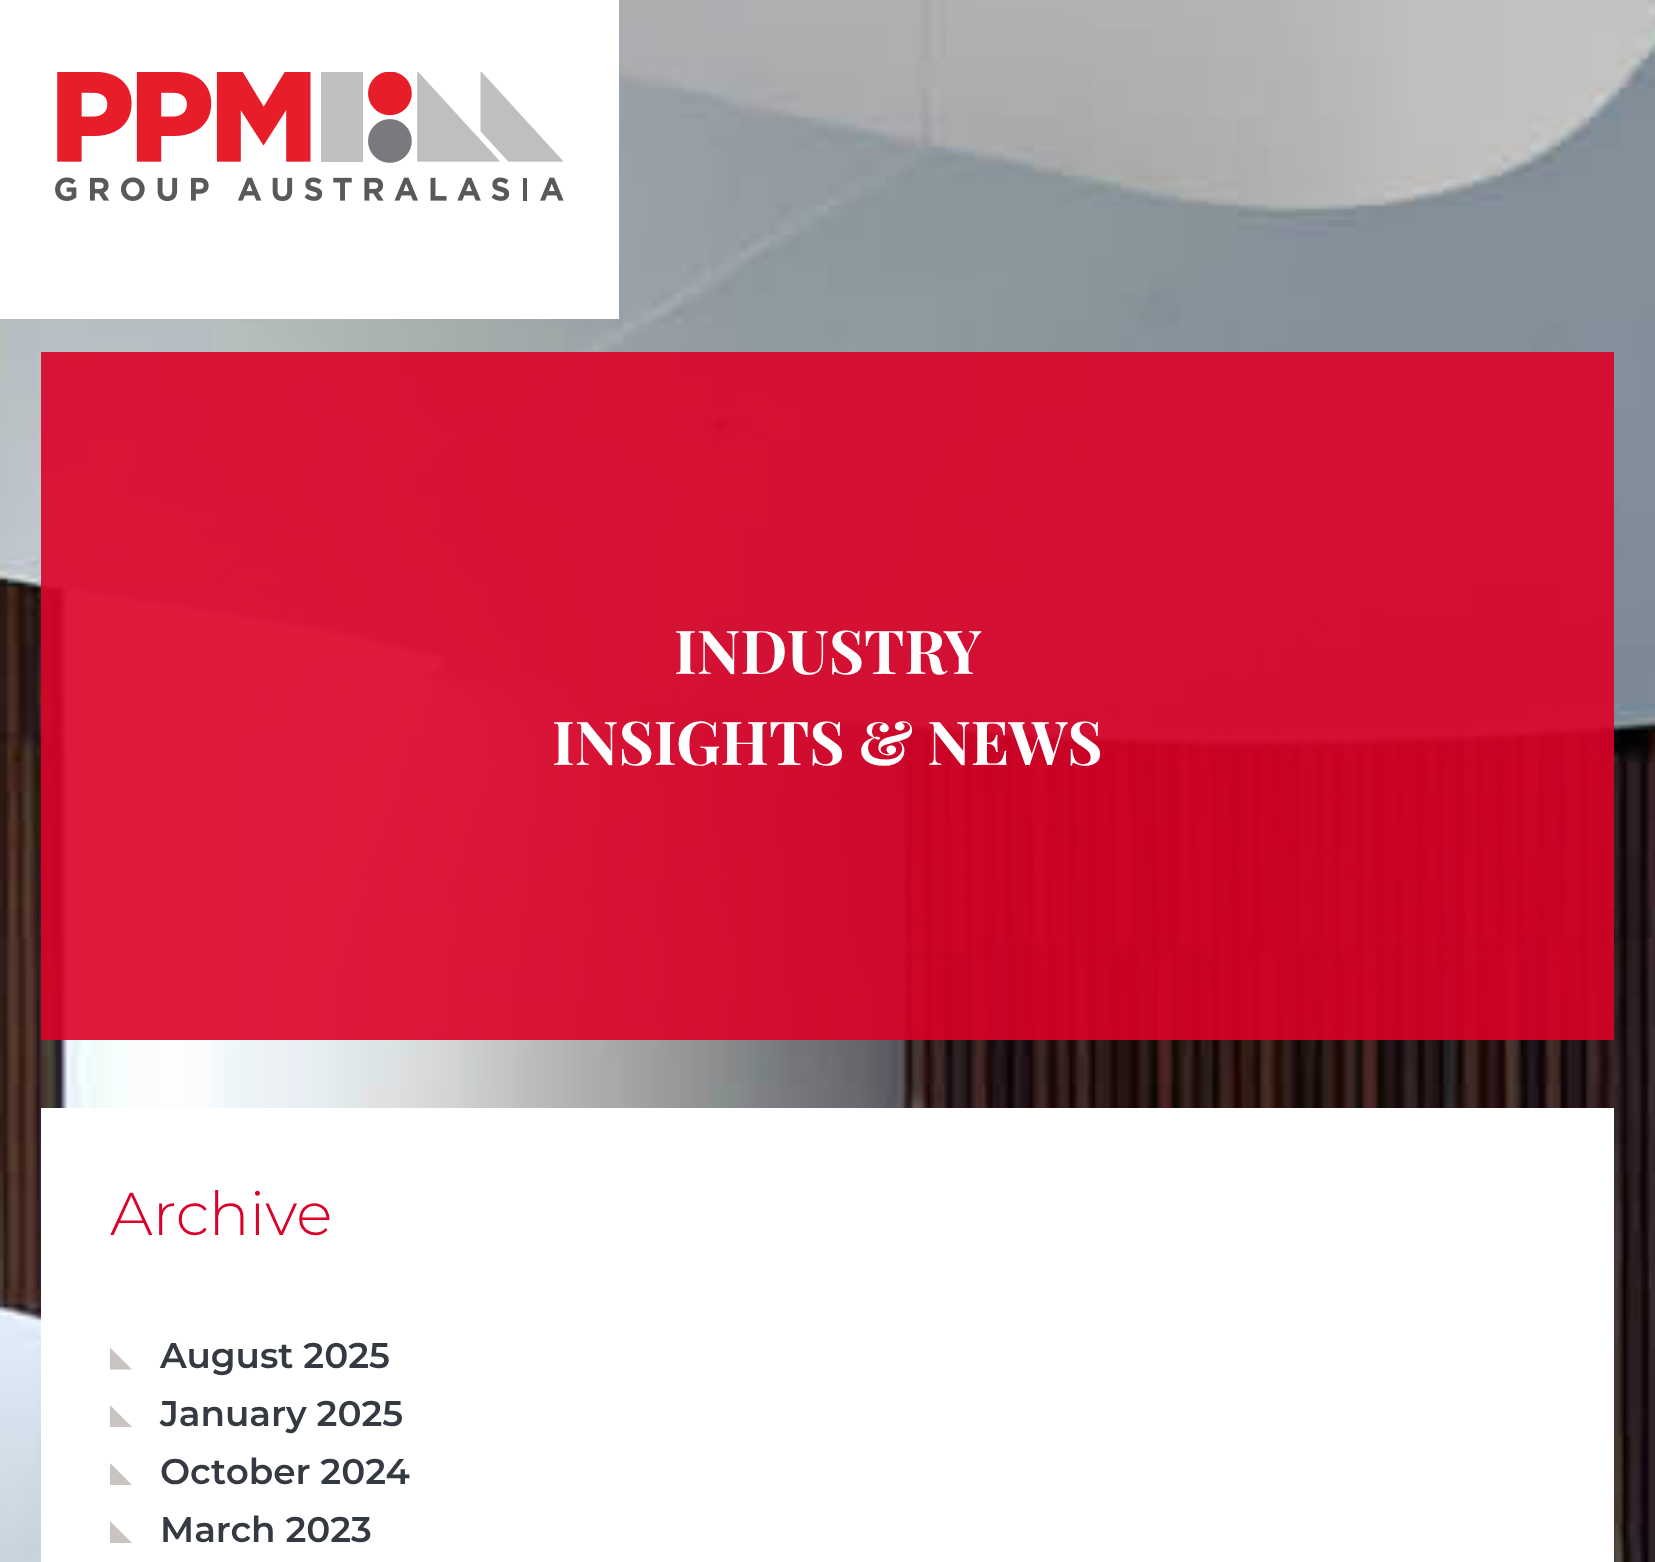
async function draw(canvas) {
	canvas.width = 1655;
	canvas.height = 1562;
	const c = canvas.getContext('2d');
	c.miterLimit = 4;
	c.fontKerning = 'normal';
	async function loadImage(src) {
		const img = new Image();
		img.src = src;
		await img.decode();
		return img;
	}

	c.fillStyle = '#fff';
	c.fillRect(0, 0, 1655, 1562);
	c.drawImage(await loadImage('img2.png'), 0, 0, 1655, 1562);
	c.fillRect(0, 0, 619, 319);
	c.drawImage(await loadImage('img1.png'), 55, 72, 509, 129);
	c.fillStyle = '#db0128e6';
	c.fillRect(41, 352, 1573, 688);
	c.font = 'bold 60.5px Playfair Display';
	c.fillStyle = '#fff';
	c.fillText('INDUSTRY', 674, 674);
	c.fillText('INSIGHTS & NEWS', 552, 765);
	c.fillRect(41, 1108, 1573, 454);
	c.font = '300 60.5px Montserrat';
	c.fillStyle = '#db0129';
	c.fillText('Archive', 110, 1235);
	c.fillStyle = '#c9c4c1';
	c.beginPath();
	c.moveTo(132, 1369.5);
	c.lineTo(110, 1369.5);
	c.lineTo(110, 1347.5);
	c.closePath();
	c.fill();
	c.font = '600 35.75px Montserrat';
	c.fillStyle = '#353942';
	c.fillText('August 2025', 160, 1368);
	c.fillStyle = '#c9c4c1';
	c.beginPath();
	c.moveTo(132, 1427);
	c.lineTo(110, 1427);
	c.lineTo(110, 1405);
	c.closePath();
	c.fill();
	c.fillStyle = '#353942';
	c.fillText('January 2025', 160, 1426);
	c.fillStyle = '#c9c4c1';
	c.beginPath();
	c.moveTo(132, 1485);
	c.lineTo(110, 1485);
	c.lineTo(110, 1463);
	c.closePath();
	c.fill();
	c.fillStyle = '#353942';
	c.fillText('October 2024', 160, 1484);
	c.fillStyle = '#c9c4c1';
	c.beginPath();
	c.moveTo(132, 1543);
	c.lineTo(110, 1543);
	c.lineTo(110, 1521);
	c.closePath();
	c.fill();
	c.fillStyle = '#353942';
	c.fillText('March 2023', 160, 1542);
}

draw(document.querySelector('canvas'));
